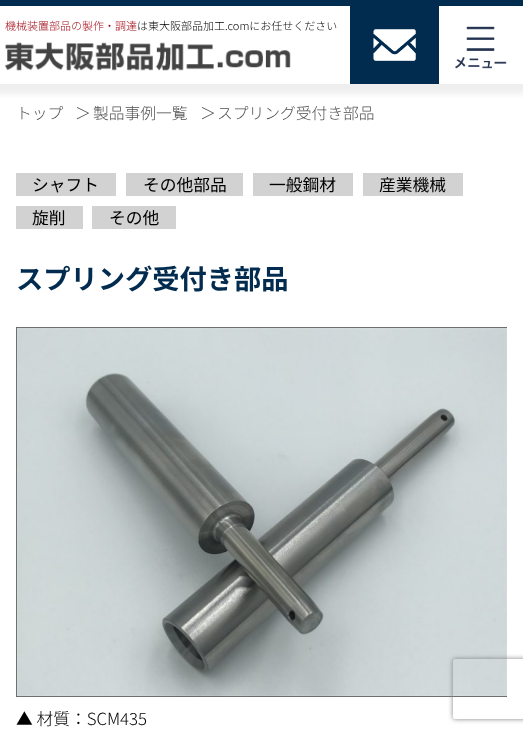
async function draw(canvas) {
	canvas.width = 523;
	canvas.height = 733;
	const c = canvas.getContext('2d');
	c.miterLimit = 4;
	c.fontKerning = 'normal';
	async function loadImage(src) {
		const img = new Image();
		img.src = src;
		await img.decode();
		return img;
	}

	c.fillStyle = '#fff';
	c.fillRect(0, 0, 523, 733);
	c.save();
	c.beginPath();
	c.rect(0, 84, 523, 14);
	c.clip();
	c.fillStyle = '#c8c8c84d';
	c.filter = 'blur(3px)';
	c.beginPath();
	c.rect(-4, 2, 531, 92);
	c.fill();
	c.filter = 'none';
	c.restore();
	c.fillStyle = '#022c4f';
	c.fillRect(0, 0, 523, 6);
	c.font = '300 11px Noto Sans JP';
	c.fillStyle = '#9f000d';
	c.fillText('機械装置部品の製作・調達', 5, 30);
	c.fillStyle = '#000';
	c.fillText('は東大阪部品加工.comにお任せください', 137, 30);
	c.drawImage(await loadImage('img1.png'), 350, 6, 89, 78);
	c.drawImage(await loadImage('img2.png'), 455, 26, 52, 43);
	c.drawImage(await loadImage('img3.png'), 5, 42, 286, 29);
	c.font = '300 15.75px Noto Sans JP';
	c.fillStyle = '#505050';
	for (const [text, x, y] of [
		['トップ', 16, 119],
		['＞', 75, 119],
		['製品事例一覧', 93, 119],
		['＞', 200, 119],
		['スプリング受付き部品', 217, 119],
	]) {
		c.fillText(text, x, y);
	}
	c.fillStyle = '#d2d2d2';
	c.fillRect(16, 173, 100, 23);
	c.font = '16.75px Noto Sans JP';
	c.fillStyle = '#000';
	c.fillText('シャフト', 32, 191);
	c.fillStyle = '#d2d2d2';
	c.fillRect(126, 173, 117, 23);
	c.fillStyle = '#000';
	c.fillText('その他部品', 143, 191);
	c.fillStyle = '#d2d2d2';
	c.fillRect(253, 173, 100, 23);
	c.fillStyle = '#000';
	c.fillText('一般鋼材', 269, 191);
	c.fillStyle = '#d2d2d2';
	c.fillRect(363, 173, 100, 23);
	c.fillStyle = '#000';
	c.fillText('産業機械', 379, 191);
	c.fillStyle = '#d2d2d2';
	c.fillRect(16, 206, 67, 23);
	c.fillStyle = '#000';
	c.fillText('旋削', 32, 224);
	c.fillStyle = '#d2d2d2';
	c.fillRect(92, 206, 84, 23);
	c.fillStyle = '#000';
	c.fillText('その他', 109, 224);
	c.font = 'bold 27.25px Noto Sans JP';
	c.fillStyle = '#022c4f';
	c.fillText('スプリング受付き部品', 16, 289);
	c.save();
	c.beginPath();
	c.rect(16, 327, 491, 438);
	c.clip();
	c.strokeStyle = '#626262';
	c.strokeRect(16.5, 327.5, 491, 369);
	c.restore();
	c.drawImage(await loadImage('img4.png'), 16, 327, 491, 370);
	c.font = '300 16.75px Noto Sans JP';
	c.fillStyle = '#000';
	c.fillText('▲ 材質：SCM435', 16, 725);
	c.save();
	c.beginPath();
	c.moveTo(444, 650);
	c.lineTo(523, 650);
	c.lineTo(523, 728);
	c.lineTo(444, 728);
	c.closePath();
	c.moveTo(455, 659);
	c.lineTo(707, 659);
	c.bezierCurveTo(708, 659, 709, 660, 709, 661);
	c.lineTo(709, 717);
	c.bezierCurveTo(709, 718, 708, 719, 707, 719);
	c.lineTo(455, 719);
	c.bezierCurveTo(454, 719, 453, 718, 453, 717);
	c.lineTo(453, 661);
	c.bezierCurveTo(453, 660, 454, 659, 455, 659);
	c.closePath();
	c.clip('evenodd');
	c.fillStyle = '#808080';
	c.filter = 'blur(2.5px)';
	c.beginPath();
	c.roundRect(453, 659, 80, 60, 2);
	c.fill();
	c.filter = 'none';
	c.restore();
}

draw(document.querySelector('canvas'));
